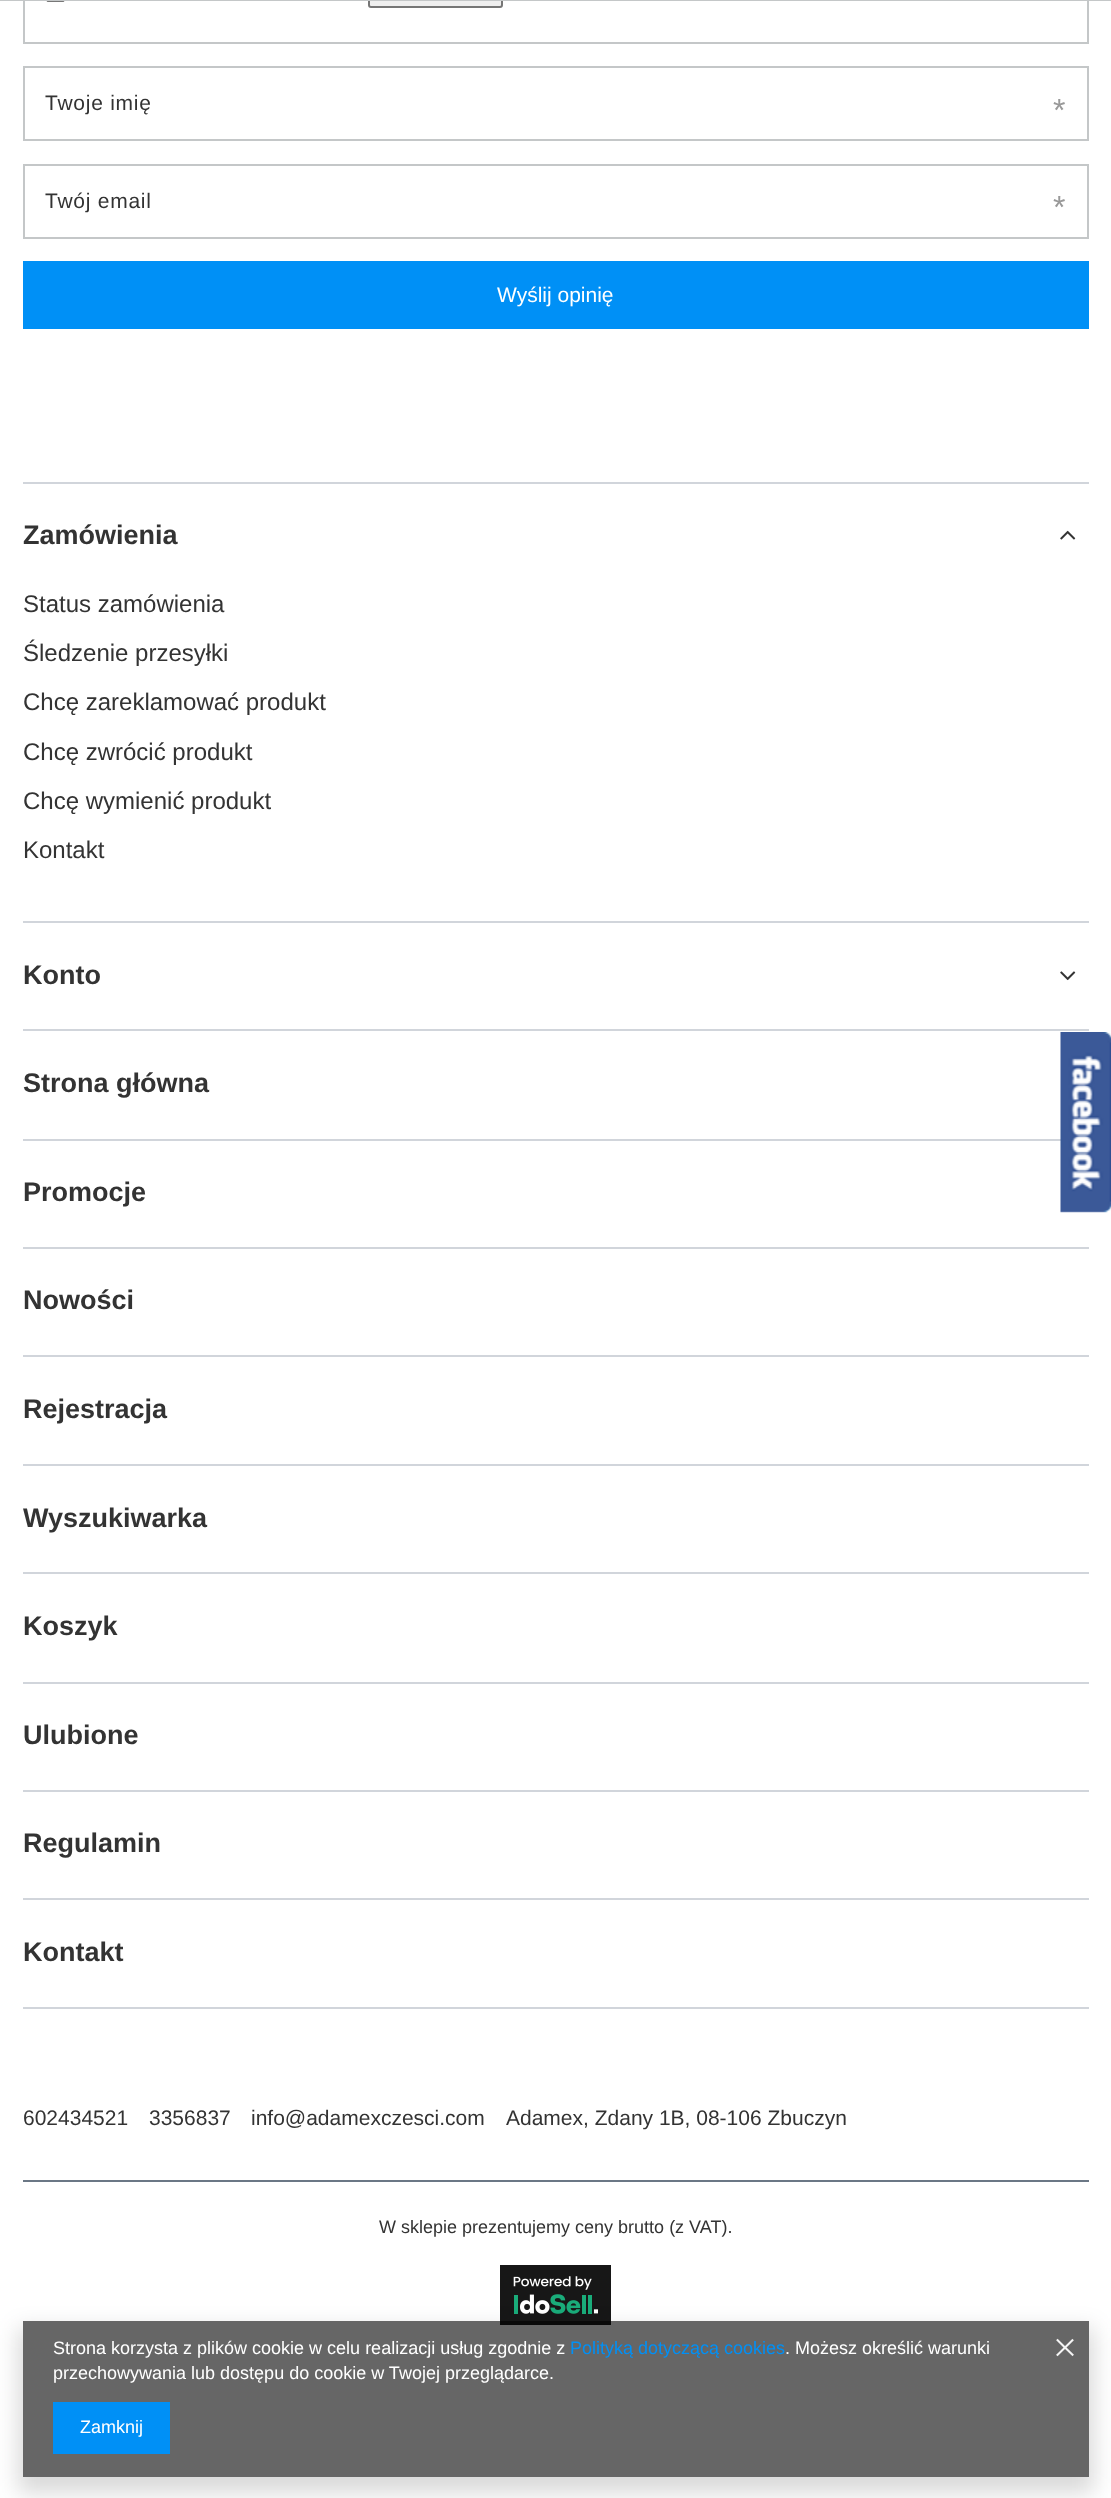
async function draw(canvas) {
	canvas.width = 1111;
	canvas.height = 2498;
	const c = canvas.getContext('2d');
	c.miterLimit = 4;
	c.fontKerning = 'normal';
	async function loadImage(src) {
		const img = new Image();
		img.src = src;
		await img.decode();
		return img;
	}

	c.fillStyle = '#fff';
	c.fillRect(0, 0, 1111, 2498);
	c.strokeStyle = '#c4c7c8';
	c.lineWidth = 2;
	c.strokeRect(24, -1, 1064, 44);
	c.fillStyle = '#efefef';
	c.beginPath();
	c.roundRect(369, -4, 133, 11, 2);
	c.fill();
	c.strokeStyle = '#767676';
	c.stroke();
	c.fillStyle = '#c4c7c8';
	c.fillRect(0, 0, 1111, 1);
	c.drawImage(await loadImage('img1.png'), 46, 1, 19, 1);
	c.strokeStyle = '#c4c7c8';
	c.strokeRect(24, 67, 1064, 73);
	c.letterSpacing = '0.75px';
	c.font = '21px Liberation Sans';
	c.fillStyle = '#333';
	c.fillText('Twoje imię', 45, 110);
	c.letterSpacing = '0px';
	c.font = '32px Liberation Sans';
	c.fillStyle = '#999';
	c.fillText('*', 1053, 121);
	c.strokeRect(24, 165, 1064, 73);
	c.letterSpacing = '0.75px';
	c.font = '21px Liberation Sans';
	c.fillStyle = '#333';
	c.fillText('Twój email', 45, 208);
	c.letterSpacing = '0px';
	c.font = '32px Liberation Sans';
	c.fillStyle = '#999';
	c.fillText('*', 1053, 218);
	c.fillStyle = '#0090f6';
	c.fillRect(23, 261, 1066, 68);
	c.font = '21px Liberation Sans';
	c.fillStyle = '#fff';
	c.fillText('Wyślij opinię', 497, 302);
	c.fillStyle = '#d1d5db';
	c.fillRect(23, 482, 1066, 2);
	c.fillRect(23, 921, 1066, 2);
	c.font = 'bold 27px Liberation Sans';
	c.fillStyle = '#333';
	c.fillText('Zamówienia', 23, 544);
	c.drawImage(await loadImage('img2.png'), 1060, 530, 16, 10);
	c.font = '24px Liberation Sans';
	for (const [text, x, y] of [
		['Status zamówienia', 23, 612],
		['Śledzenie przesyłki', 23, 661],
		['Chcę zareklamować produkt', 23, 710],
		['Chcę zwrócić produkt', 23, 760],
		['Chcę wymienić produkt', 23, 809],
		['Kontakt', 23, 858],
	]) {
		c.fillText(text, x, y);
	}
	c.fillStyle = '#d1d5db';
	c.fillRect(23, 1029, 1066, 2);
	c.font = 'bold 27px Liberation Sans';
	c.fillStyle = '#333';
	c.fillText('Konto', 23, 984);
	c.drawImage(await loadImage('img3.png'), 1060, 971, 16, 10);
	c.fillStyle = '#d1d5db';
	c.fillRect(23, 1139, 1038, 2);
	c.fillStyle = '#333';
	c.fillText('Strona główna', 23, 1092);
	c.fillStyle = '#d1d5db';
	c.fillRect(23, 1247, 1066, 2);
	c.fillStyle = '#333';
	c.fillText('Promocje', 23, 1201);
	c.fillStyle = '#d1d5db';
	c.fillRect(23, 1355, 1066, 2);
	c.fillStyle = '#333';
	c.fillText('Nowości', 23, 1309);
	c.fillStyle = '#d1d5db';
	c.fillRect(23, 1464, 1066, 2);
	c.fillStyle = '#333';
	c.fillText('Rejestracja', 23, 1418);
	c.fillStyle = '#d1d5db';
	c.fillRect(23, 1572, 1066, 2);
	c.fillStyle = '#333';
	c.fillText('Wyszukiwarka', 23, 1527);
	c.fillStyle = '#d1d5db';
	c.fillRect(23, 1682, 1066, 2);
	c.fillStyle = '#333';
	c.fillText('Koszyk', 23, 1635);
	c.fillStyle = '#d1d5db';
	c.fillRect(23, 1790, 1066, 2);
	c.fillStyle = '#333';
	c.fillText('Ulubione', 23, 1744);
	c.fillStyle = '#d1d5db';
	c.fillRect(23, 1898, 1066, 2);
	c.fillStyle = '#333';
	c.fillText('Regulamin', 23, 1852);
	c.fillStyle = '#d1d5db';
	c.fillRect(23, 2007, 1066, 2);
	c.fillStyle = '#333';
	c.fillText('Kontakt', 23, 1961);
	c.fillStyle = '#6b7785';
	c.fillRect(23, 2180, 1066, 2);
	c.font = '21px Liberation Sans';
	c.fillStyle = '#333';
	for (const [text, x, y] of [
		['602434521', 23, 2125],
		['3356837', 149, 2125],
		['info@adamexczesci.com', 251, 2125],
		['Adamex, Zdany 1B, 08-106 Zbuczyn', 506, 2125],
	]) {
		c.fillText(text, x, y);
	}
	c.font = '18px Liberation Sans';
	c.fillText('W sklepie prezentujemy ceny brutto (z VAT).', 379, 2233);
	c.drawImage(await loadImage('img4.png'), 500, 2265, 111, 60);
	c.drawImage(await loadImage('img5.png'), 1060, 1032, 51, 181);
	c.save();
	c.beginPath();
	c.moveTo(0, 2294);
	c.lineTo(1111, 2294);
	c.lineTo(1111, 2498);
	c.lineTo(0, 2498);
	c.closePath();
	c.moveTo(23, 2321);
	c.lineTo(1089, 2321);
	c.lineTo(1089, 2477);
	c.lineTo(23, 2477);
	c.closePath();
	c.clip('evenodd');
	c.fillStyle = '#00000026';
	c.filter = 'blur(11px)';
	c.beginPath();
	c.rect(18, 2328, 1076, 165);
	c.fill();
	c.filter = 'none';
	c.restore();
	c.fillStyle = '#00000099';
	c.fillRect(23, 2321, 1066, 156);
	c.fillStyle = '#fff';
	c.fillText('Strona korzysta z plików cookie w celu realizacji usług zgodnie z', 53, 2354);
	c.fillStyle = '#0090f6';
	c.fillText('Polityką dotyczącą cookies', 570, 2354);
	c.fillStyle = '#fff';
	c.fillText('. Możesz określić warunki', 785, 2354);
	c.fillText('przechowywania lub dostępu do cookie w Twojej przeglądarce.', 53, 2379);
	c.fillStyle = '#0090f6';
	c.fillRect(53, 2402, 117, 52);
	c.fillStyle = '#fff';
	c.fillText('Zamknij', 80, 2433);
	c.drawImage(await loadImage('img6.png'), 1056, 2338, 18, 19);
}

draw(document.querySelector('canvas'));
